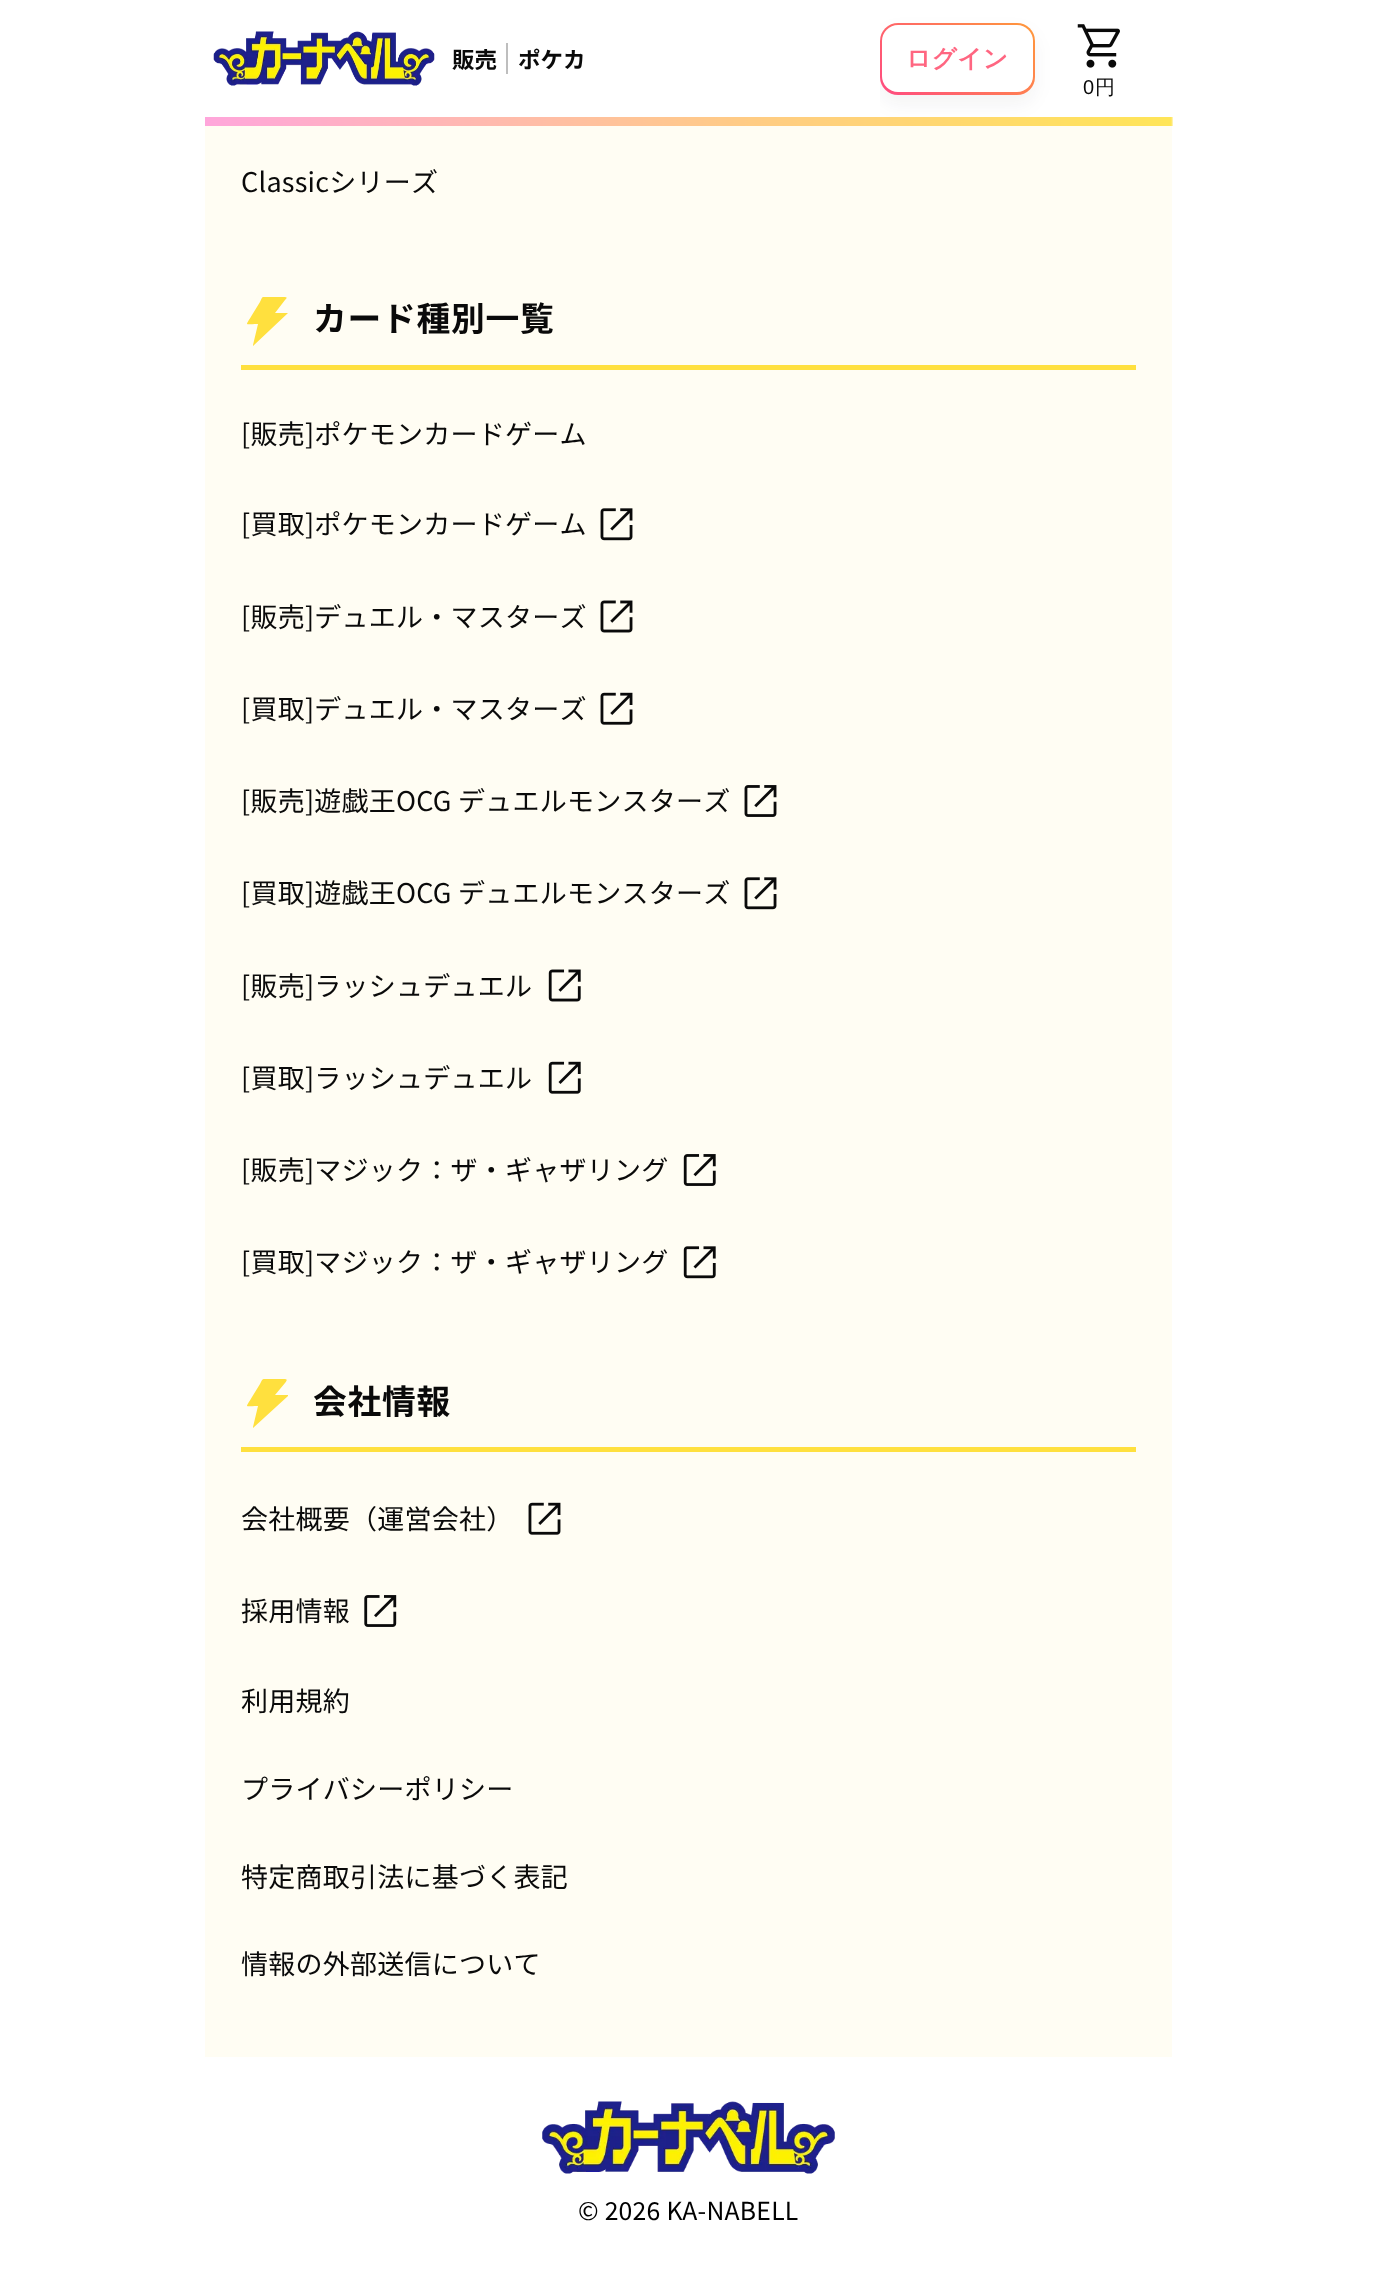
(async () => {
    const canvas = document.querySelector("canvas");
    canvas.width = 1375;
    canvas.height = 2292;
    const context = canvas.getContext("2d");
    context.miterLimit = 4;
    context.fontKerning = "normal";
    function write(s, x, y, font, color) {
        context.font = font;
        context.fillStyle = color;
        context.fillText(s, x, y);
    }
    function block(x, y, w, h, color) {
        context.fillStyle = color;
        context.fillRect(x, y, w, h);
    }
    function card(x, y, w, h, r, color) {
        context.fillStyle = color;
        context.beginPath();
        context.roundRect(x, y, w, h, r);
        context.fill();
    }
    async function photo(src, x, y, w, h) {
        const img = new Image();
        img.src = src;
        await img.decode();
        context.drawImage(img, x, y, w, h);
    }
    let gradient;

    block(0, 0, 1375, 2292, "rgb(255, 255, 255)");
    await photo("media/1.png", 205, 117, 968, 9);
    await photo("media/2.png", 213, 31, 222, 55);
    write("販売", 452, 68, "bold 22.5px Noto Sans JP", "rgb(10, 10, 10)");
    block(506, 43, 2, 31, "rgb(190, 190, 190)");
    write("ポケカ", 518, 68, "bold 22.5px Noto Sans JP", "rgb(10, 10, 10)");
    block(205, 126, 967, 1931, "rgb(255, 253, 243)");
    context.save();
    context.beginPath();
    context.rect(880, 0, 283, 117);
    context.clip();
    context.fillStyle = "rgba(15, 22, 30, 0.05)";
    context.filter = "blur(9px)";
    context.beginPath();
    context.roundRect(880, 32, 155, 72, 18);
    context.fill();
    context.filter = "none";
    context.restore();
    gradient = context.createLinearGradient(901, 115, 1014, 1.7);
    gradient.addColorStop(0, "rgb(255, 75, 129)");
    gradient.addColorStop(1, "rgb(255, 153, 58)");
    context.fillStyle = gradient;
    context.beginPath();
    context.roundRect(880, 23, 155, 72, 18);
    context.fill();
    card(882, 25, 151, 67, 16, "rgb(255, 255, 255)");
    context.letterSpacing = "0.25px";
    write("ログイン", 906, 67, "bold 24.75px WenQuanYi Zen Hei", "rgb(255, 102, 129)");
    await photo("media/3.png", 1077, 24, 43, 44);
    context.letterSpacing = "0px";
    write("0", 1083, 94, "20px Liberation Sans", "rgb(10, 10, 10)");
    write("円", 1095, 94, "500 20px WenQuanYi Zen Hei", "rgb(10, 10, 10)");
    context.letterSpacing = "0.25px";
    write("Classicシリーズ", 241, 192, "27px Noto Sans JP", "rgb(10, 10, 10)");
    block(241, 365, 895, 5, "rgb(255, 224, 62)");
    context.beginPath();
    context.moveTo(288, 313);
    context.lineTo(275, 313);
    context.lineTo(285, 300);
    context.bezierCurveTo(288, 297, 287, 297, 282, 297);
    context.lineTo(267, 297);
    context.bezierCurveTo(261, 297, 263, 296, 260, 302);
    context.lineTo(252, 315);
    context.bezierCurveTo(245, 327, 244, 324, 258, 324);
    context.lineTo(253, 345);
    context.lineTo(253, 346);
    context.closePath();
    context.fill();
    context.letterSpacing = "0.75px";
    write("カード種別一覧", 313, 331, "bold 33.75px Noto Sans JP", "rgb(10, 10, 10)");
    context.letterSpacing = "0.25px";
    write("[販売]ポケモンカードゲーム", 241, 444, "27px Noto Sans JP", "rgb(10, 10, 10)");
    write("[買取]ポケモンカードゲーム", 241, 534, "27px Noto Sans JP", "rgb(10, 10, 10)");
    await photo("media/4.png", 600, 508, 33, 33);
    write("[販売]デュエル・マスターズ", 241, 627, "27px Noto Sans JP", "rgb(10, 10, 10)");
    await photo("media/5.png", 600, 600, 33, 33);
    write("[買取]デュエル・マスターズ", 241, 719, "27px Noto Sans JP", "rgb(10, 10, 10)");
    await photo("media/6.png", 600, 692, 33, 33);
    write("[販売]遊戯王OCG デュエルモンスターズ", 241, 811, "27px Noto Sans JP", "rgb(10, 10, 10)");
    await photo("media/7.png", 744, 785, 33, 32);
    write("[買取]遊戯王OCG デュエルモンスターズ", 241, 903, "27px Noto Sans JP", "rgb(10, 10, 10)");
    await photo("media/4.png", 744, 877, 33, 33);
    write("[販売]ラッシュデュエル", 241, 996, "27px Noto Sans JP", "rgb(10, 10, 10)");
    await photo("media/8.png", 548, 969, 33, 33);
    write("[買取]ラッシュデュエル", 241, 1088, "27px Noto Sans JP", "rgb(10, 10, 10)");
    await photo("media/9.png", 548, 1061, 33, 33);
    write("[販売]マジック：ザ・ギャザリング", 241, 1180, "27px Noto Sans JP", "rgb(10, 10, 10)");
    await photo("media/10.png", 683, 1154, 33, 32);
    write("[買取]マジック：ザ・ギャザリング", 241, 1272, "27px Noto Sans JP", "rgb(10, 10, 10)");
    await photo("media/11.png", 683, 1246, 33, 33);
    block(241, 1447, 895, 5, "rgb(255, 224, 62)");
    context.beginPath();
    context.moveTo(288, 1395);
    context.lineTo(275, 1395);
    context.lineTo(285, 1383);
    context.bezierCurveTo(288, 1379, 287, 1379, 282, 1379);
    context.lineTo(267, 1379);
    context.bezierCurveTo(261, 1379, 263, 1379, 260, 1384);
    context.lineTo(252, 1397);
    context.bezierCurveTo(245, 1409, 244, 1406, 258, 1406);
    context.lineTo(253, 1427);
    context.lineTo(253, 1428);
    context.lineTo(288, 1396);
    context.closePath();
    context.fill();
    context.letterSpacing = "0.75px";
    write("会社情報", 313, 1414, "bold 33.75px Noto Sans JP", "rgb(10, 10, 10)");
    context.letterSpacing = "0.25px";
    write("会社概要（運営会社）", 241, 1529, "27px Noto Sans JP", "rgb(10, 10, 10)");
    await photo("media/6.png", 528, 1502, 33, 33);
    write("採用情報", 241, 1621, "27px Noto Sans JP", "rgb(10, 10, 10)");
    await photo("media/12.png", 364, 1595, 33, 32);
    write("利用規約", 241, 1711, "27px Noto Sans JP", "rgb(10, 10, 10)");
    write("プライバシーポリシー", 241, 1799, "27px Noto Sans JP", "rgb(10, 10, 10)");
    write("特定商取引法に基づく表記", 241, 1887, "27px Noto Sans JP", "rgb(10, 10, 10)");
    write("情報の外部送信について", 241, 1974, "27px Noto Sans JP", "rgb(10, 10, 10)");
    await photo("media/13.png", 542, 2101, 293, 73);
    write("© 2026 KA-NABELL", 578, 2220, "24.75px Noto Sans JP", "rgb(0, 0, 0)");
})();
